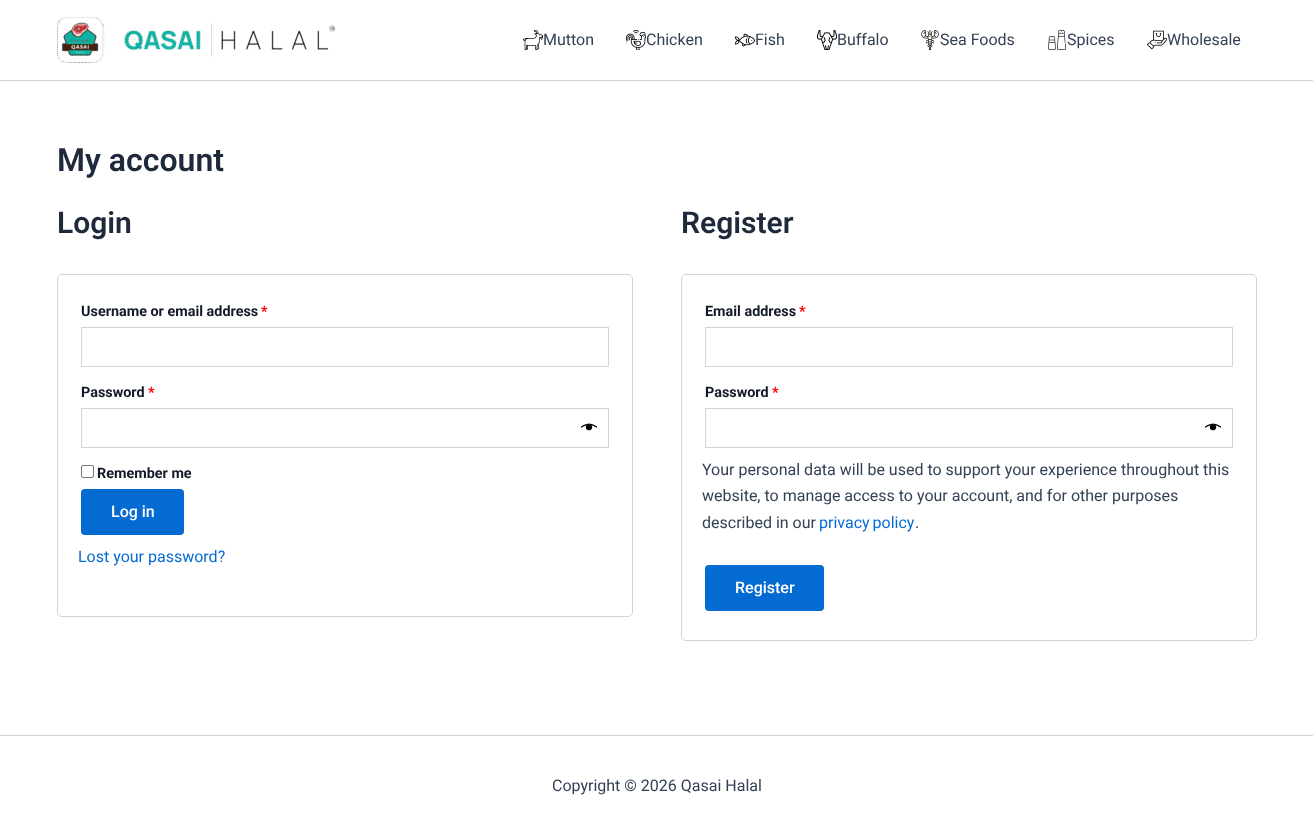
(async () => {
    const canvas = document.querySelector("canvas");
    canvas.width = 1313;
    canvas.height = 836;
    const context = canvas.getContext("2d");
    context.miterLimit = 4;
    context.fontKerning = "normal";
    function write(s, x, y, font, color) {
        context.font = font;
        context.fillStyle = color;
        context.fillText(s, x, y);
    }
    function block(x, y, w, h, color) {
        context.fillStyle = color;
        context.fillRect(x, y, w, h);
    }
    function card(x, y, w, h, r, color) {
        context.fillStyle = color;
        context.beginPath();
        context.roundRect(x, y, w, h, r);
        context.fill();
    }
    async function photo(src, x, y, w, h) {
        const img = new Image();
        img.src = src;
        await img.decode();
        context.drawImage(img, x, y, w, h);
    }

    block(0, 0, 1313, 836, "rgb(255, 255, 255)");
    block(0, 80, 1313, 1, "rgb(209, 213, 219)");
    await photo("media/1.png", 57, 17, 278, 46);
    await photo("media/2.png", 523, 30, 20, 20);
    write("Mutton", 543, 45, "16px Roboto", "rgb(51, 65, 85)");
    await photo("media/3.png", 626, 30, 20, 20);
    write("Chicken", 646, 45, "16px Roboto", "rgb(51, 65, 85)");
    await photo("media/4.png", 735, 33, 20, 14);
    write("Fish", 755, 45, "16px Roboto", "rgb(51, 65, 85)");
    await photo("media/5.png", 817, 30, 20, 20);
    write("Buffalo", 837, 45, "16px Roboto", "rgb(51, 65, 85)");
    await photo("media/6.png", 921, 30, 18, 20);
    write("Sea Foods", 940, 45, "16px Roboto", "rgb(51, 65, 85)");
    await photo("media/7.png", 1048, 30, 18, 20);
    write("Spices", 1067, 45, "16px Roboto", "rgb(51, 65, 85)");
    await photo("media/8.png", 1147, 30, 20, 20);
    write("Wholesale", 1167, 45, "16px Roboto", "rgb(51, 65, 85)");
    write("My account", 57, 171, "600 32px Roboto", "rgb(30, 41, 59)");
    write("Login", 57, 233, "600 30px Roboto", "rgb(30, 41, 59)");
    context.beginPath();
    context.roundRect(57.5, 274.5, 575, 342, 4.5);
    context.strokeStyle = "rgb(209, 213, 219)";
    context.stroke();
    write("Username or email address", 81, 316, "bold 14.4px Roboto", "rgb(17, 24, 39)");
    write("*", 261, 316, "bold 14.4px Roboto", "rgb(255, 0, 0)");
    context.strokeRect(81.5, 327.5, 527, 39);
    write("Password", 81, 397, "bold 14.4px Roboto", "rgb(17, 24, 39)");
    write("*", 148, 397, "bold 14.4px Roboto", "rgb(255, 0, 0)");
    context.strokeRect(81.5, 408.5, 527, 39);
    await photo("media/9.png", 581, 423, 16, 8);
    context.beginPath();
    context.roundRect(81.5, 465.5, 12, 12, 1.5);
    context.strokeStyle = "rgb(118, 118, 118)";
    context.stroke();
    write("Remember me", 97, 478, "bold 14.4px Roboto", "rgb(17, 24, 39)");
    card(81, 489, 103, 46, 4, "rgb(4, 107, 210)");
    write("Log in", 111, 517, "500 16px Roboto", "rgb(255, 255, 255)");
    write("Lost your password?", 78, 562, "16px Roboto", "rgb(4, 107, 210)");
    write("Register", 681, 233, "600 30px Roboto", "rgb(30, 41, 59)");
    context.beginPath();
    context.roundRect(681.5, 274.5, 575, 366, 4.5);
    context.strokeStyle = "rgb(209, 213, 219)";
    context.stroke();
    write("Email address", 705, 316, "bold 14.4px Roboto", "rgb(17, 24, 39)");
    write("*", 799, 316, "bold 14.4px Roboto", "rgb(255, 0, 0)");
    context.strokeRect(705.5, 327.5, 527, 39);
    write("Password", 705, 397, "bold 14.4px Roboto", "rgb(17, 24, 39)");
    write("*", 772, 397, "bold 14.4px Roboto", "rgb(255, 0, 0)");
    context.strokeRect(705.5, 408.5, 527, 39);
    await photo("media/9.png", 1205, 423, 16, 8);
    write("Your personal data will be used to support your experience throughout this", 702, 475, "16px Roboto", "rgb(51, 65, 85)");
    write("website, to manage access to your account, and for other purposes", 702, 501, "16px Roboto", "rgb(51, 65, 85)");
    write("described in our", 702, 528, "16px Roboto", "rgb(51, 65, 85)");
    context.wordSpacing = "-1px";
    write("privacy policy", 819, 528, "16px Roboto", "rgb(4, 107, 210)");
    context.wordSpacing = "0px";
    write(".", 915, 528, "16px Roboto", "rgb(51, 65, 85)");
    card(705, 565, 119, 46, 4, "rgb(4, 107, 210)");
    write("Register", 735, 593, "500 16px Roboto", "rgb(255, 255, 255)");
    block(0, 735, 1313, 1, "rgb(209, 213, 219)");
    write("Copyright © 2026 Qasai Halal", 552, 791, "16px Roboto", "rgb(51, 65, 85)");
})();
